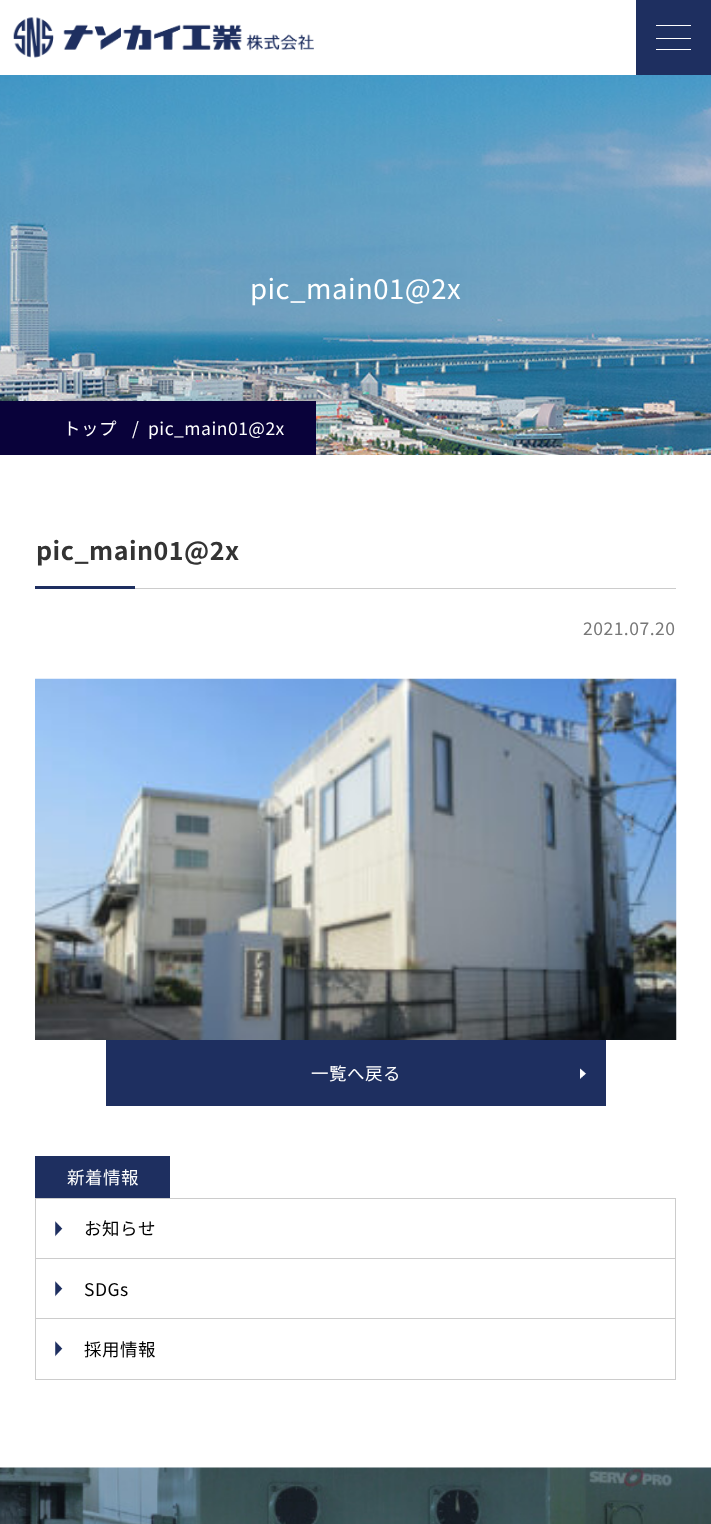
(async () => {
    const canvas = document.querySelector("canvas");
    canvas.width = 711;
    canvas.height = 1524;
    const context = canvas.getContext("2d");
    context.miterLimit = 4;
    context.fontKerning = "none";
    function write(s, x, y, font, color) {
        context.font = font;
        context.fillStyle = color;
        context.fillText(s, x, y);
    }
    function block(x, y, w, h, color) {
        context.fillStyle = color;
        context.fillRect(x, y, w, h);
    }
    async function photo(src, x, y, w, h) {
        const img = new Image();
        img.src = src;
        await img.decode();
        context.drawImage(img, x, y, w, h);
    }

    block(0, 0, 711, 1524, "rgb(255, 255, 255)");
    await photo("media/1.png", 13, 17, 301, 41);
    block(636, 0, 75, 75, "rgb(30, 47, 96)");
    block(656, 25, 35, 1, "rgb(255, 255, 255)");
    block(656, 38, 35, 1, "rgb(255, 255, 255)");
    block(656, 49, 35, 1, "rgb(255, 255, 255)");
    await photo("media/2.png", 0, 75, 711, 380);
    context.letterSpacing = "0.5px";
    write("pic_main01@2x", 250, 299, "27.5px Noto Sans JP", "rgb(255, 255, 255)");
    block(0, 401, 316, 54, "rgb(9, 2, 58)");
    write("トップ", 63, 435, "17.5px Noto Sans JP", "rgb(255, 255, 255)");
    write("/", 132, 435, "17.5px Noto Sans JP", "rgb(255, 255, 255)");
    write("pic_main01@2x", 148, 435, "17.5px Noto Sans JP", "rgb(255, 255, 255)");
    block(135, 588, 541, 1, "rgb(204, 204, 204)");
    write("pic_main01@2x", 36, 560, "bold 25px Noto Sans JP", "rgb(51, 51, 51)");
    block(35, 586, 100, 3, "rgb(30, 47, 96)");
    write("2021.07.20", 583, 635, "17.5px Noto Sans JP", "rgb(119, 119, 119)");
    await photo("media/3.png", 35, 678, 642, 362);
    block(106, 1040, 500, 66, "rgb(30, 47, 96)");
    await photo("media/4.png", 580, 1068, 7, 11);
    write("一覧へ戻る", 311, 1080, "17.5px Noto Sans JP", "rgb(255, 255, 255)");
    block(35, 1156, 135, 42, "rgb(30, 47, 96)");
    write("新着情報", 67, 1184, "17.5px Noto Sans JP", "rgb(255, 255, 255)");
    context.strokeStyle = "rgb(204, 204, 204)";
    context.strokeRect(35.5, 1198.5, 640, 181);
    await photo("media/5.png", 55, 1221, 8, 16);
    write("お知らせ", 84, 1235, "17.5px Noto Sans JP", "rgb(0, 0, 0)");
    block(36, 1258, 639, 1, "rgb(204, 204, 204)");
    await photo("media/5.png", 55, 1281, 8, 16);
    write("SDGs", 84, 1296, "17.5px Noto Sans JP", "rgb(0, 0, 0)");
    block(36, 1318, 639, 1, "rgb(204, 204, 204)");
    await photo("media/5.png", 55, 1341, 8, 16);
    write("採用情報", 84, 1356, "17.5px Noto Sans JP", "rgb(0, 0, 0)");
    await photo("media/6.png", 0, 1467, 711, 57);
})();
